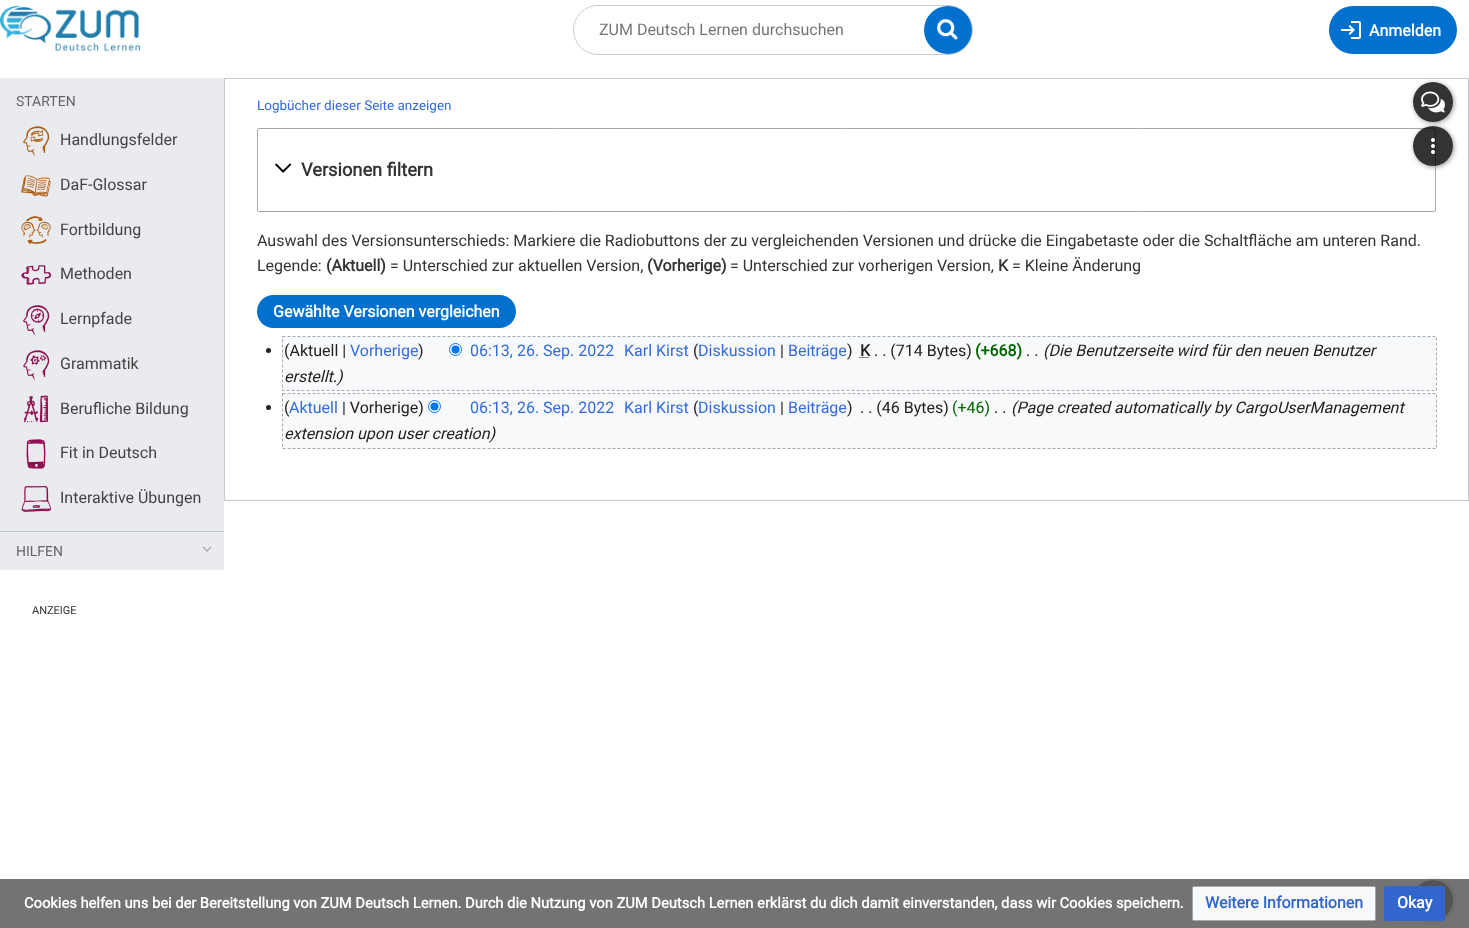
(async () => {
    const canvas = document.querySelector("canvas");
    canvas.width = 1469;
    canvas.height = 928;
    const context = canvas.getContext("2d");
    context.miterLimit = 4;
    context.fontKerning = "normal";
    function write(s, x, y, font, color) {
        context.font = font;
        context.fillStyle = color;
        context.fillText(s, x, y);
    }
    function block(x, y, w, h, color) {
        context.fillStyle = color;
        context.fillRect(x, y, w, h);
    }
    function card(x, y, w, h, r, color) {
        context.fillStyle = color;
        context.beginPath();
        context.roundRect(x, y, w, h, r);
        context.fill();
    }
    async function photo(src, x, y, w, h) {
        const img = new Image();
        img.src = src;
        await img.decode();
        context.drawImage(img, x, y, w, h);
    }

    block(0, 0, 1469, 928, "rgb(255, 255, 255)");
    await photo("media/1.png", 0, 6, 140, 46);
    context.beginPath();
    context.roundRect(573.5, 5.5, 399, 49, 24.5);
    context.strokeStyle = "rgb(200, 204, 209)";
    context.stroke();
    write("ZUM Deutsch Lernen durchsuchen", 599, 35, "16px Roboto", "rgb(117, 117, 117)");
    context.fillStyle = "rgb(1, 112, 206)";
    context.beginPath();
    context.arc(948, 30, 24, 0, Math.PI * 2);
    context.fill();
    await photo("media/2.png", 937, 19, 21, 21);
    card(1329, 6, 128, 48, 24, "rgb(1, 112, 206)");
    await photo("media/3.png", 1341, 21, 20, 18);
    write("Anmelden", 1369, 36, "bold 16px Roboto", "rgb(255, 255, 255)");
    block(0, 78, 224, 492, "rgb(233, 235, 239)");
    write("STARTEN", 16, 106, "14px Roboto", "rgb(102, 102, 102)");
    await photo("media/4.png", 23, 126, 27, 30);
    write("Handlungsfelder", 60, 145, "16px Roboto", "rgb(68, 68, 68)");
    await photo("media/5.png", 21, 175, 30, 22);
    write("DaF-Glossar", 60, 190, "16px Roboto", "rgb(68, 68, 68)");
    await photo("media/6.png", 21, 216, 30, 28);
    write("Fortbildung", 60, 235, "16px Roboto", "rgb(68, 68, 68)");
    await photo("media/7.png", 21, 265, 31, 20);
    write("Methoden", 60, 279, "16px Roboto", "rgb(68, 68, 68)");
    await photo("media/8.png", 23, 305, 27, 30);
    write("Lernpfade", 60, 324, "16px Roboto", "rgb(68, 68, 68)");
    await photo("media/9.png", 23, 350, 27, 30);
    write("Grammatik", 60, 369, "16px Roboto", "rgb(68, 68, 68)");
    await photo("media/10.png", 23, 395, 26, 28);
    write("Berufliche Bildung", 60, 414, "16px Roboto", "rgb(68, 68, 68)");
    await photo("media/11.png", 26, 439, 20, 30);
    write("Fit in Deutsch", 60, 458, "16px Roboto", "rgb(68, 68, 68)");
    await photo("media/12.png", 21, 486, 30, 26);
    write("Interaktive Übungen", 60, 503, "16px Roboto", "rgb(68, 68, 68)");
    block(0, 531, 224, 1, "rgb(200, 204, 209)");
    write("HILFEN", 16, 556, "14px Roboto", "rgb(102, 102, 102)");
    await photo("media/13.png", 202, 546, 10, 6);
    write("ANZEIGE", 32, 614, "11px Roboto", "rgb(51, 51, 51)");
    context.strokeRect(224.5, 78.5, 1244, 422);
    context.beginPath();
    context.roundRect(257.5, 128.5, 1178, 83, 1.5);
    context.strokeStyle = "rgb(162, 169, 177)";
    context.stroke();
    context.save();
    context.beginPath();
    context.moveTo(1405, 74);
    context.lineTo(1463, 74);
    context.lineTo(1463, 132);
    context.lineTo(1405, 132);
    context.closePath();
    context.moveTo(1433, 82);
    context.bezierCurveTo(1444, 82, 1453, 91, 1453, 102);
    context.bezierCurveTo(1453, 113, 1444, 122, 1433, 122);
    context.bezierCurveTo(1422, 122, 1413, 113, 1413, 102);
    context.bezierCurveTo(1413, 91, 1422, 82, 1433, 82);
    context.closePath();
    context.clip("evenodd");
    context.fillStyle = "rgb(153, 153, 153)";
    context.filter = "blur(2.5px)";
    context.beginPath();
    context.roundRect(1414, 83, 40, 40, 20);
    context.fill();
    context.filter = "none";
    context.restore();
    context.fillStyle = "rgba(0, 0, 0, 0.8)";
    context.beginPath();
    context.arc(1433, 102, 20, 0, Math.PI * 2);
    context.fill();
    await photo("media/14.png", 1421, 91, 24, 22);
    context.save();
    context.beginPath();
    context.moveTo(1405, 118);
    context.lineTo(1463, 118);
    context.lineTo(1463, 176);
    context.lineTo(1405, 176);
    context.closePath();
    context.moveTo(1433, 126);
    context.bezierCurveTo(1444, 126, 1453, 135, 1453, 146);
    context.bezierCurveTo(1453, 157, 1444, 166, 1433, 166);
    context.bezierCurveTo(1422, 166, 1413, 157, 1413, 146);
    context.bezierCurveTo(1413, 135, 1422, 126, 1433, 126);
    context.closePath();
    context.clip("evenodd");
    context.fillStyle = "rgb(153, 153, 153)";
    context.filter = "blur(2.5px)";
    context.beginPath();
    context.roundRect(1414, 127, 40, 40, 20);
    context.fill();
    context.filter = "none";
    context.restore();
    context.beginPath();
    context.arc(1433, 146, 20, 0, Math.PI * 2);
    context.fill();
    await photo("media/15.png", 1431, 138, 4, 16);
    context.save();
    context.beginPath();
    context.moveTo(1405, 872);
    context.lineTo(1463, 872);
    context.lineTo(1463, 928);
    context.lineTo(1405, 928);
    context.closePath();
    context.moveTo(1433, 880);
    context.bezierCurveTo(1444, 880, 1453, 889, 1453, 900);
    context.bezierCurveTo(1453, 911, 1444, 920, 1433, 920);
    context.bezierCurveTo(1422, 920, 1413, 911, 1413, 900);
    context.bezierCurveTo(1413, 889, 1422, 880, 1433, 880);
    context.closePath();
    context.clip("evenodd");
    context.fillStyle = "rgb(153, 153, 153)";
    context.filter = "blur(2.5px)";
    context.beginPath();
    context.roundRect(1414, 881, 40, 40, 20);
    context.fill();
    context.filter = "none";
    context.restore();
    context.beginPath();
    context.arc(1433, 900, 20, 0, Math.PI * 2);
    context.fill();
    write("Logbücher dieser Seite anzeigen", 257, 110, "13.5px Roboto", "rgb(51, 107, 218)");
    await photo("media/16.png", 275, 163, 17, 10);
    write("Versionen filtern", 301, 176, "bold 18.25px Roboto", "rgb(51, 51, 51)");
    write("Auswahl des Versionsunterschieds: Markiere die Radiobuttons der zu vergleichenden Versionen und drücke die Eingabetaste oder die Schaltfläche am unteren Rand.", 257, 246, "16px Roboto", "rgb(51, 51, 51)");
    write("Legende:", 257, 271, "16px Roboto", "rgb(51, 51, 51)");
    write("(Aktuell)", 326, 271, "bold 16px Roboto", "rgb(51, 51, 51)");
    write("= Unterschied zur aktuellen Version,", 390, 271, "16px Roboto", "rgb(51, 51, 51)");
    write("(Vorherige)", 647, 271, "bold 16px Roboto", "rgb(51, 51, 51)");
    write("= Unterschied zur vorherigen Version,", 730, 271, "16px Roboto", "rgb(51, 51, 51)");
    write("K", 998, 271, "bold 16px Roboto", "rgb(51, 51, 51)");
    write("= Kleine Änderung", 1012, 271, "16px Roboto", "rgb(51, 51, 51)");
    card(257, 295, 259, 33, 16.5, "rgb(1, 112, 206)");
    write("Gewählte Versionen vergleichen", 273, 317, "bold 16px Roboto", "rgb(255, 255, 255)");
    block(283, 337, 1153, 53, "rgb(248, 249, 250)");
    write("(Aktuell |", 284, 356, "16px Roboto", "rgb(32, 33, 34)");
    write("Vorherige", 350, 356, "16px Roboto", "rgb(51, 107, 218)");
    write(")", 418, 356, "16px Roboto", "rgb(32, 33, 34)");
    context.fillStyle = "rgb(255, 255, 255)";
    context.beginPath();
    context.arc(455.5, 349.5, 6, 0, Math.PI * 2);
    context.fill();
    context.strokeStyle = "rgb(0, 117, 255)";
    context.stroke();
    context.fillStyle = "rgb(0, 117, 255)";
    context.beginPath();
    context.arc(455.5, 349.5, 4, 0, Math.PI * 2);
    context.fill();
    write("06:13, 26. Sep. 2022", 470, 356, "16px Roboto", "rgb(51, 107, 218)");
    write("Karl Kirst", 624, 356, "16px Roboto", "rgb(51, 107, 218)");
    write("(", 693, 356, "16px Roboto", "rgb(32, 33, 34)");
    write("Diskussion", 698, 356, "16px Roboto", "rgb(51, 107, 218)");
    write("|", 780, 356, "16px Roboto", "rgb(32, 33, 34)");
    write("Beiträge", 788, 356, "16px Roboto", "rgb(51, 107, 218)");
    write(")", 847, 356, "16px Roboto", "rgb(32, 33, 34)");
    write("K", 860, 356, "bold 16px Roboto", "rgb(32, 33, 34)");
    context.beginPath();
    context.moveTo(859.5, 357.5);
    context.lineTo(869.5, 357.5);
    context.strokeStyle = "rgb(32, 33, 34)";
    context.setLineDash([1, 1]);
    context.stroke();
    write(". . (714 Bytes)", 874, 356, "16px Roboto", "rgb(32, 33, 34)");
    write("(+668)", 975, 356, "bold 16px Roboto", "rgb(0, 100, 0)");
    write("(Die Benutzerseite wird für den neuen Benutzer", 1043, 356, "italic 16px Roboto", "rgb(32, 33, 34)");
    write(". .", 1026, 356, "16px Roboto", "rgb(32, 33, 34)");
    write("erstellt.)", 284, 382, "italic 16px Roboto", "rgb(32, 33, 34)");
    context.beginPath();
    context.moveTo(282.5, 336.5);
    context.lineTo(1436.5, 336.5);
    context.lineTo(1436.5, 390.5);
    context.lineTo(282.5, 390.5);
    context.closePath();
    context.strokeStyle = "rgb(162, 169, 177)";
    context.setLineDash([3, 2]);
    context.stroke();
    context.beginPath();
    context.arc(268.5, 350.5, 2.5, 0, Math.PI * 2);
    context.fill();
    block(283, 394, 1153, 54, "rgb(248, 249, 250)");
    write("(", 284, 413, "16px Roboto", "rgb(32, 33, 34)");
    write("Aktuell", 289, 413, "16px Roboto", "rgb(51, 107, 218)");
    write("| Vorherige)", 342, 413, "16px Roboto", "rgb(32, 33, 34)");
    context.fillStyle = "rgb(255, 255, 255)";
    context.beginPath();
    context.arc(434.5, 406.5, 6, 0, Math.PI * 2);
    context.fill();
    context.strokeStyle = "rgb(0, 117, 255)";
    context.setLineDash([]);
    context.stroke();
    context.fillStyle = "rgb(0, 117, 255)";
    context.beginPath();
    context.arc(434.5, 406.5, 4, 0, Math.PI * 2);
    context.fill();
    write("06:13, 26. Sep. 2022", 470, 413, "16px Roboto", "rgb(51, 107, 218)");
    write("Karl Kirst", 624, 413, "16px Roboto", "rgb(51, 107, 218)");
    write("(", 693, 413, "16px Roboto", "rgb(32, 33, 34)");
    write("Diskussion", 698, 413, "16px Roboto", "rgb(51, 107, 218)");
    write("|", 780, 413, "16px Roboto", "rgb(32, 33, 34)");
    write("Beiträge", 788, 413, "16px Roboto", "rgb(51, 107, 218)");
    write(")", 847, 413, "16px Roboto", "rgb(32, 33, 34)");
    write(". . (46 Bytes)", 860, 413, "16px Roboto", "rgb(32, 33, 34)");
    write("(+46)", 952, 413, "16px Roboto", "rgb(0, 100, 0)");
    write("(Page created automatically by CargoUserManagement", 1011, 413, "italic 16px Roboto", "rgb(32, 33, 34)");
    write(". .", 994, 413, "16px Roboto", "rgb(32, 33, 34)");
    write("extension upon user creation)", 284, 439, "italic 16px Roboto", "rgb(32, 33, 34)");
    context.beginPath();
    context.moveTo(282.5, 393.5);
    context.lineTo(1436.5, 393.5);
    context.lineTo(1436.5, 448.5);
    context.lineTo(282.5, 448.5);
    context.closePath();
    context.strokeStyle = "rgb(162, 169, 177)";
    context.setLineDash([3, 2]);
    context.stroke();
    context.beginPath();
    context.arc(268.5, 407.5, 2.5, 0, Math.PI * 2);
    context.fill();
    block(0, 879, 1469, 49, "rgba(90, 90, 90, 0.85)");
    write("Cookies helfen uns bei der Bereitstellung von ZUM Deutsch Lernen. Durch die Nutzung von ZUM Deutsch Lernen erklärst du dich damit einverstanden, dass wir Cookies speichern.", 24, 908, "bold 14.72px Roboto", "rgb(255, 255, 255)");
    context.fillStyle = "rgb(248, 249, 250)";
    context.beginPath();
    context.roundRect(1192.5, 886.5, 183, 34, 1.5);
    context.fill();
    context.setLineDash([]);
    context.stroke();
    write("Weitere Informationen", 1205, 908, "bold 16px Roboto", "rgb(51, 102, 204)");
    context.beginPath();
    context.roundRect(1384.5, 886.5, 60, 34, 1.5);
    context.fill();
    context.strokeStyle = "rgb(51, 102, 204)";
    context.stroke();
    write("Okay", 1397, 908, "bold 16px Roboto", "rgb(255, 255, 255)");
})();
